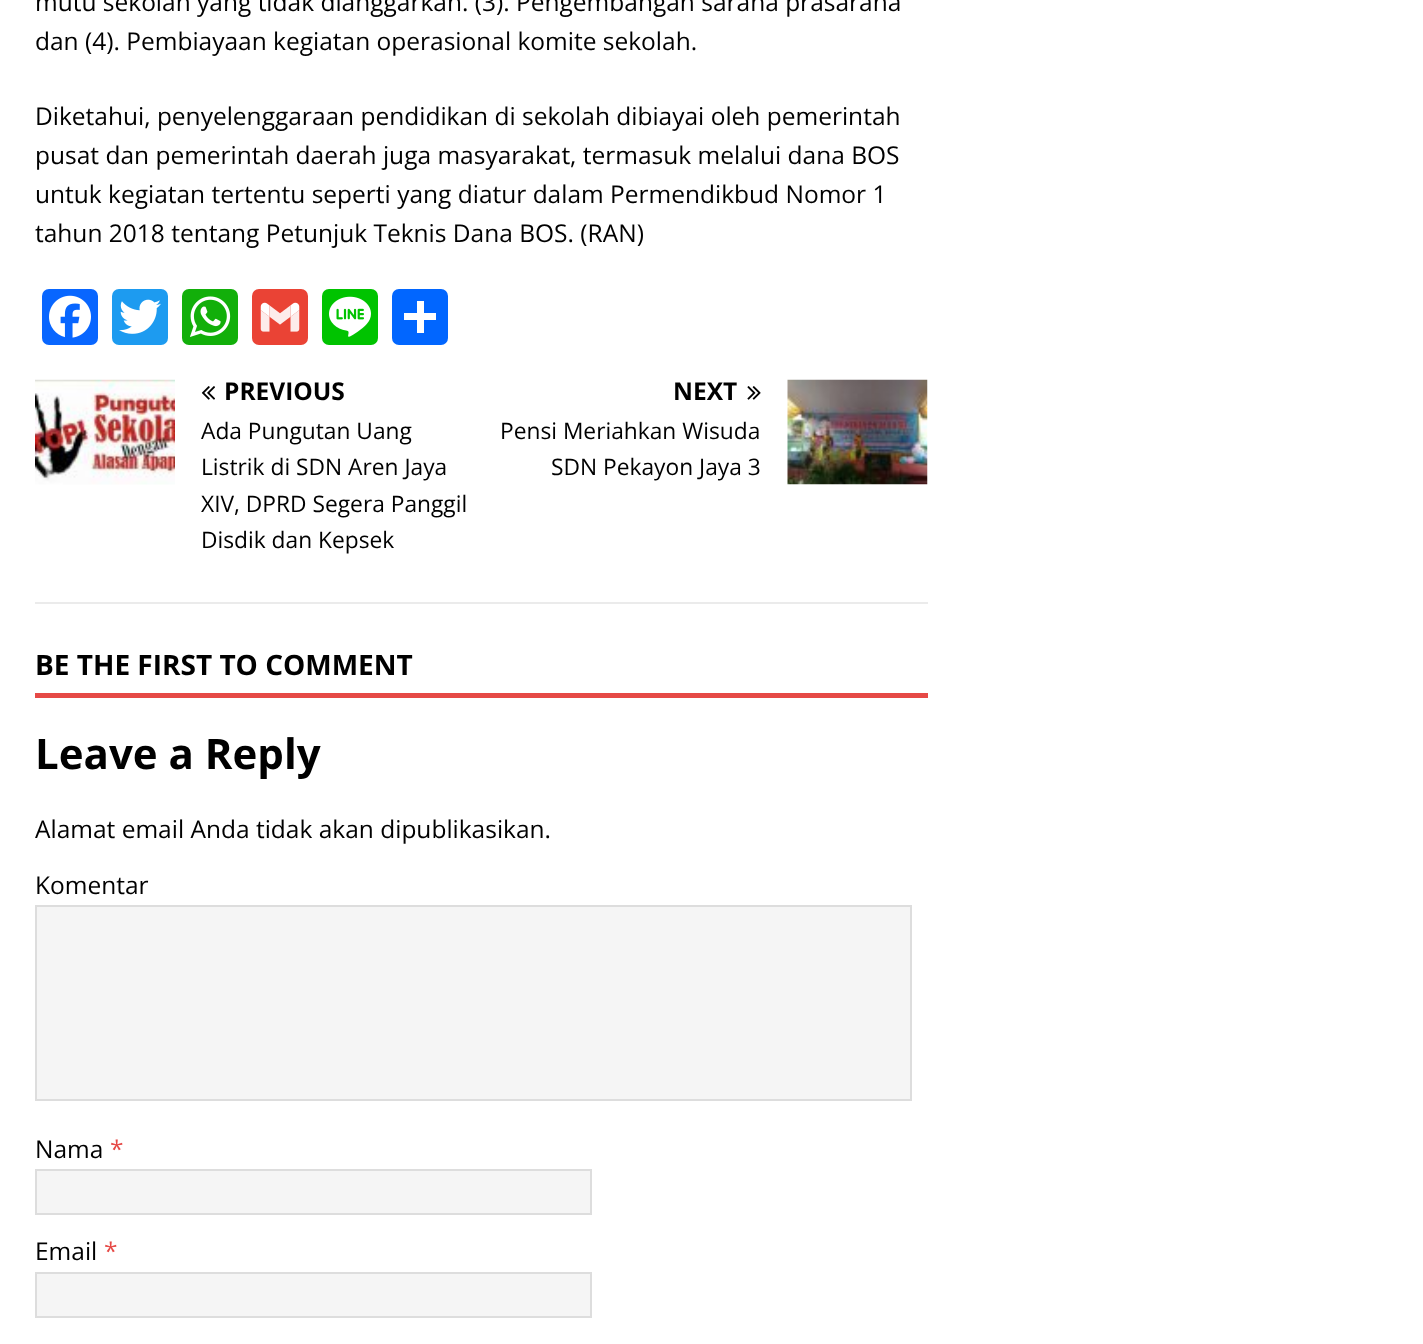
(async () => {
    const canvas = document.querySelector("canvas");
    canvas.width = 1423;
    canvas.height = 1344;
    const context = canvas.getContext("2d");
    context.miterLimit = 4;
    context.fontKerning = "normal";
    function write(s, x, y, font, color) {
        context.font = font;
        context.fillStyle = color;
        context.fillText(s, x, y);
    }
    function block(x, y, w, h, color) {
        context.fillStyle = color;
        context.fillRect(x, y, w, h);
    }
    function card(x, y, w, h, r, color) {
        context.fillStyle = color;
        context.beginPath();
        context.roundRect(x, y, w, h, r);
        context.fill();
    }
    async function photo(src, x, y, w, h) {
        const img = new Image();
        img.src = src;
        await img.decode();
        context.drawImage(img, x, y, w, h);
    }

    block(0, 0, 1423, 1344, "rgb(255, 255, 255)");
    write("mutu sekolah yang tidak dianggarkan. (3). Pengembangan sarana prasarana", 35, 11, "24.5px Open Sans", "rgb(0, 0, 0)");
    write("dan (4). Pembiayaan kegiatan operasional komite sekolah.", 35, 50, "24.5px Open Sans", "rgb(0, 0, 0)");
    write("Diketahui, penyelenggaraan pendidikan di sekolah dibiayai oleh pemerintah", 35, 125, "24.5px Open Sans", "rgb(0, 0, 0)");
    write("pusat dan pemerintah daerah juga masyarakat, termasuk melalui dana BOS", 35, 164, "24.5px Open Sans", "rgb(0, 0, 0)");
    write("untuk kegiatan tertentu seperti yang diatur dalam Permendikbud Nomor 1", 35, 203, "24.5px Open Sans", "rgb(0, 0, 0)");
    write("tahun 2018 tentang Petunjuk Teknis Dana BOS. (RAN)", 35, 242, "24.5px Open Sans", "rgb(0, 0, 0)");
    card(42, 289, 56, 56, 7, "rgb(8, 102, 255)");
    await photo("media/1.png", 49, 295, 42, 43);
    card(112, 289, 56, 56, 7, "rgb(29, 155, 240)");
    await photo("media/2.png", 119, 299, 42, 35);
    card(182, 289, 56, 56, 7, "rgb(18, 175, 10)");
    await photo("media/3.png", 190, 296, 41, 41);
    card(252, 289, 56, 56, 7, "rgb(234, 67, 53)");
    await photo("media/4.png", 260, 302, 40, 30);
    card(322, 289, 56, 56, 7, "rgb(0, 195, 0)");
    await photo("media/5.png", 329, 296, 42, 41);
    card(392, 289, 56, 56, 7, "rgb(1, 102, 255)");
    block(417, 301, 7, 32, "rgb(255, 255, 255)");
    block(404, 313, 32, 7, "rgb(255, 255, 255)");
    block(35, 602, 893, 2, "rgb(235, 235, 235)");
    await photo("media/6.png", 35, 379, 140, 106);
    await photo("media/7.png", 201, 386, 14, 14);
    write("PREVIOUS", 224, 400, "bold 24.5px Open Sans", "rgb(0, 0, 0)");
    write("Ada Pungutan Uang", 201, 439, "22.75px Open Sans", "rgb(0, 0, 0)");
    write("Listrik di SDN Aren Jaya", 201, 475, "22.75px Open Sans", "rgb(0, 0, 0)");
    write("XIV, DPRD Segera Panggil", 201, 512, "22.75px Open Sans", "rgb(0, 0, 0)");
    write("Disdik dan Kepsek", 201, 548, "22.75px Open Sans", "rgb(0, 0, 0)");
    write("NEXT", 673, 400, "bold 24.5px Open Sans", "rgb(0, 0, 0)");
    await photo("media/8.png", 747, 386, 14, 14);
    await photo("media/9.png", 787, 379, 141, 106);
    write("Pensi Meriahkan Wisuda", 500, 439, "22.75px Open Sans", "rgb(0, 0, 0)");
    write("SDN Pekayon Jaya 3", 551, 475, "22.75px Open Sans", "rgb(0, 0, 0)");
    block(35, 693, 893, 5, "rgb(230, 73, 70)");
    write("BE THE FIRST TO COMMENT", 35, 675, "bold 28px Open Sans", "rgb(0, 0, 0)");
    write("Leave a Reply", 35, 769, "bold 42px Open Sans", "rgb(0, 0, 0)");
    write("Alamat email Anda tidak akan dipublikasikan.", 35, 838, "24.5px Open Sans", "rgb(0, 0, 0)");
    write("Komentar", 35, 894, "24.5px Open Sans", "rgb(0, 0, 0)");
    context.fillStyle = "rgb(245, 245, 245)";
    context.beginPath();
    context.rect(36, 906, 875, 194);
    context.fill();
    context.strokeStyle = "rgb(221, 221, 221)";
    context.lineWidth = 2;
    context.stroke();
    write("Nama", 35, 1158, "24.5px Open Sans", "rgb(0, 0, 0)");
    write("*", 110, 1158, "24.5px Open Sans", "rgb(230, 73, 70)");
    context.fillStyle = "rgb(245, 245, 245)";
    context.beginPath();
    context.rect(36, 1170, 555, 44);
    context.fill();
    context.stroke();
    write("Email", 35, 1260, "24.5px Open Sans", "rgb(0, 0, 0)");
    write("*", 104, 1260, "24.5px Open Sans", "rgb(230, 73, 70)");
    context.fillStyle = "rgb(245, 245, 245)";
    context.beginPath();
    context.rect(36, 1273, 555, 44);
    context.fill();
    context.stroke();
})();
